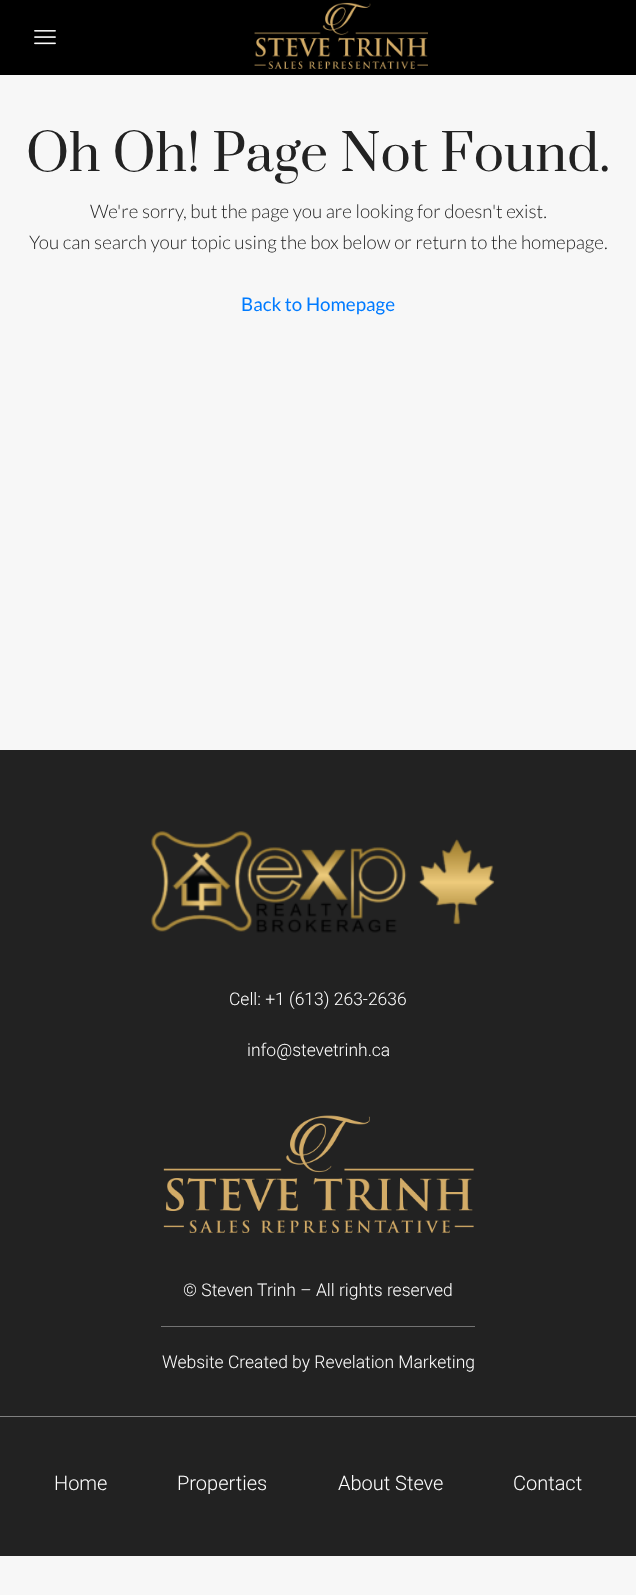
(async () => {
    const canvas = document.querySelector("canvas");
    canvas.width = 636;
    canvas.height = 1595;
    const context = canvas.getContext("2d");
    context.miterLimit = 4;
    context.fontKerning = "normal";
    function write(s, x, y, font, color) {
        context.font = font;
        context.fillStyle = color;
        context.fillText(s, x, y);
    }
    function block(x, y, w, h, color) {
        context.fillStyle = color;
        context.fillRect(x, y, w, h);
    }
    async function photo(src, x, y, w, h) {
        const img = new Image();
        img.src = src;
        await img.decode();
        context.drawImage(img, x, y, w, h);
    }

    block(0, 0, 636, 1595, "rgb(247, 247, 247)");
    block(0, 0, 636, 75, "rgb(0, 0, 0)");
    await photo("media/1.png", 34, 30, 22, 15);
    await photo("media/2.png", 254, 2, 174, 67);
    write("Oh Oh! Page Not Found.", 26, 171, "50px Prata", "rgb(34, 34, 34)");
    write("We're sorry, but the page you are looking for doesn't exist.", 90, 218, "300 18.75px Lato", "rgb(34, 34, 34)");
    write("You can search your topic using the box below or return to the homepage.", 29, 249, "300 18.75px Lato", "rgb(34, 34, 34)");
    write("Back to Homepage", 241, 311, "18.75px Lato", "rgb(0, 123, 255)");
    block(0, 750, 636, 666, "rgb(34, 34, 34)");
    await photo("media/3.png", 151, 831, 344, 102);
    write("Cell: +1 (613) 263-2636", 229, 1005, "300 17.5px Roboto", "rgb(255, 255, 255)");
    write("info@stevetrinh.ca", 247, 1056, "300 17.5px Roboto", "rgb(255, 255, 255)");
    await photo("media/4.png", 163, 1115, 311, 118);
    write("© Steven Trinh – All rights reserved", 183, 1296, "300 17.5px Roboto", "rgb(255, 255, 255)");
    block(161, 1326, 314, 1, "rgb(115, 115, 115)");
    write("Website Created by Revelation Marketing", 162, 1368, "300 17.5px Roboto", "rgb(255, 255, 255)");
    block(0, 1417, 636, 139, "rgb(34, 34, 34)");
    block(0, 1416, 636, 1, "rgb(128, 128, 128)");
    write("Home", 54, 1490, "300 20px Roboto", "rgb(255, 255, 255)");
    write("Properties", 177, 1490, "300 20px Roboto", "rgb(255, 255, 255)");
    write("About Steve", 338, 1490, "300 20px Roboto", "rgb(255, 255, 255)");
    write("Contact", 513, 1490, "300 20px Roboto", "rgb(255, 255, 255)");
})();
